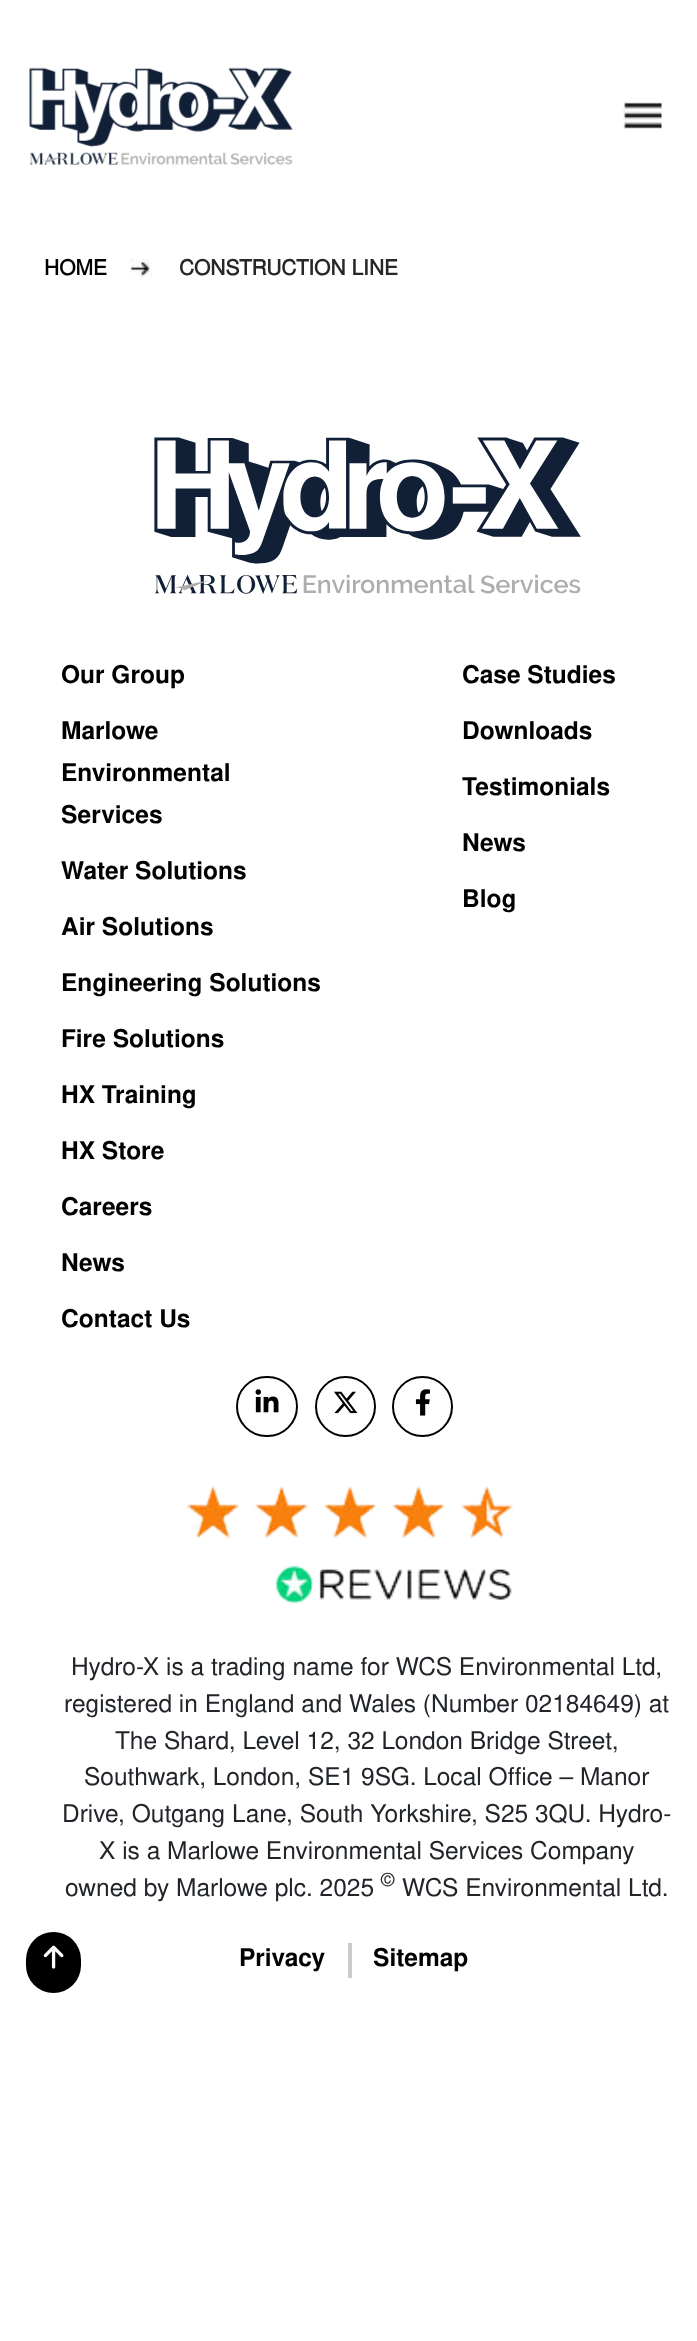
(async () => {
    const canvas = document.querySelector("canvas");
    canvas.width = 697;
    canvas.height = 2341;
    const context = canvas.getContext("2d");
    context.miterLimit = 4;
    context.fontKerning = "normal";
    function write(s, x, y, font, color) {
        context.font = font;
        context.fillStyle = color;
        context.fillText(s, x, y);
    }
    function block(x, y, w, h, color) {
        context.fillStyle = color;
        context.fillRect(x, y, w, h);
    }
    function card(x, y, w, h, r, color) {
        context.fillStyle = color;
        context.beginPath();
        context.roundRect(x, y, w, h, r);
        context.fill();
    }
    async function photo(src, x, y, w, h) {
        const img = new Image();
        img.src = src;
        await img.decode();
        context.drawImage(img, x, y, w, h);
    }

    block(0, 0, 697, 2341, "rgb(255, 255, 255)");
    await photo("media/1.png", 29, 67, 264, 98);
    await photo("media/2.png", 623, 101, 39, 29);
    write("HOME", 44, 275, "bold 21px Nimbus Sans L", "rgb(0, 0, 0)");
    await photo("media/3.png", 129, 259, 23, 19);
    write("CONSTRUCTION LINE", 179, 275, "bold 21px Nimbus Sans L", "rgb(39, 39, 42)");
    await photo("media/4.png", 154, 437, 427, 157);
    write("Our Group", 61, 683, "bold 24.5px 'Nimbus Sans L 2'", "rgb(0, 0, 0)");
    write("Marlowe", 61, 739, "bold 24.5px 'Nimbus Sans L 2'", "rgb(0, 0, 0)");
    write("Environmental", 61, 781, "bold 24.5px 'Nimbus Sans L 2'", "rgb(0, 0, 0)");
    write("Services", 61, 823, "bold 24.5px 'Nimbus Sans L 2'", "rgb(0, 0, 0)");
    write("Water Solutions", 61, 879, "bold 24.5px 'Nimbus Sans L 2'", "rgb(0, 0, 0)");
    write("Air Solutions", 61, 935, "bold 24.5px 'Nimbus Sans L 2'", "rgb(0, 0, 0)");
    write("Engineering Solutions", 61, 991, "bold 24.5px 'Nimbus Sans L 2'", "rgb(0, 0, 0)");
    write("Fire Solutions", 61, 1047, "bold 24.5px 'Nimbus Sans L 2'", "rgb(0, 0, 0)");
    write("HX Training", 61, 1103, "bold 24.5px 'Nimbus Sans L 2'", "rgb(0, 0, 0)");
    write("HX Store", 61, 1159, "bold 24.5px 'Nimbus Sans L 2'", "rgb(0, 0, 0)");
    write("Careers", 61, 1215, "bold 24.5px 'Nimbus Sans L 2'", "rgb(0, 0, 0)");
    write("News", 61, 1271, "bold 24.5px 'Nimbus Sans L 2'", "rgb(0, 0, 0)");
    write("Contact Us", 61, 1327, "bold 24.5px 'Nimbus Sans L 2'", "rgb(0, 0, 0)");
    write("Case Studies", 462, 683, "bold 24.5px 'Nimbus Sans L 2'", "rgb(0, 0, 0)");
    write("Downloads", 462, 739, "bold 24.5px 'Nimbus Sans L 2'", "rgb(0, 0, 0)");
    write("Testimonials", 462, 795, "bold 24.5px 'Nimbus Sans L 2'", "rgb(0, 0, 0)");
    write("News", 462, 851, "bold 24.5px 'Nimbus Sans L 2'", "rgb(0, 0, 0)");
    write("Blog", 462, 907, "bold 24.5px 'Nimbus Sans L 2'", "rgb(0, 0, 0)");
    context.beginPath();
    context.roundRect(237, 1377, 60, 59, 29.5);
    context.strokeStyle = "rgb(0, 0, 0)";
    context.lineWidth = 2;
    context.stroke();
    await photo("media/5.png", 255, 1389, 24, 24);
    context.beginPath();
    context.arc(345.5, 1406.5, 29.5, 0, Math.PI * 2);
    context.stroke();
    await photo("media/6.png", 334, 1391, 24, 23);
    context.beginPath();
    context.arc(422.5, 1406.5, 29.5, 0, Math.PI * 2);
    context.stroke();
    await photo("media/7.png", 415, 1389, 15, 27);
    await photo("media/8.png", 186, 1485, 327, 118);
    card(26, 1932, 55, 61, 27.5, "rgb(0, 0, 0)");
    await photo("media/9.png", 43, 1945, 21, 24);
    write("Hydro-X is a trading name for WCS Environmental Ltd,", 71, 1675, "24.5px Nimbus Sans L", "rgb(33, 37, 41)");
    write("registered in England and Wales (Number 02184649) at", 64, 1712, "24.5px Nimbus Sans L", "rgb(33, 37, 41)");
    write("The Shard, Level 12, 32 London Bridge Street,", 115, 1749, "24.5px Nimbus Sans L", "rgb(33, 37, 41)");
    write("Southwark, London, SE1 9SG. Local Office – Manor", 84, 1785, "24.5px Nimbus Sans L", "rgb(33, 37, 41)");
    write("Drive, Outgang Lane, South Yorkshire, S25 3QU. Hydro-", 62, 1822, "24.5px Nimbus Sans L", "rgb(33, 37, 41)");
    write("X is a Marlowe Environmental Services Company", 99, 1859, "24.5px Nimbus Sans L", "rgb(33, 37, 41)");
    write("owned by Marlowe plc. 2025", 65, 1896, "24.5px Nimbus Sans L", "rgb(33, 37, 41)");
    write("©", 381, 1886, "18px Nimbus Sans L", "rgb(33, 37, 41)");
    write("WCS Environmental Ltd.", 402, 1896, "24.5px Nimbus Sans L", "rgb(33, 37, 41)");
    write("Privacy", 239, 1966, "bold 24.5px 'Nimbus Sans L 2'", "rgb(0, 0, 0)");
    block(348, 1943, 4, 35, "rgb(204, 204, 204)");
    write("Sitemap", 373, 1966, "bold 24.5px 'Nimbus Sans L 2'", "rgb(0, 0, 0)");
})();
